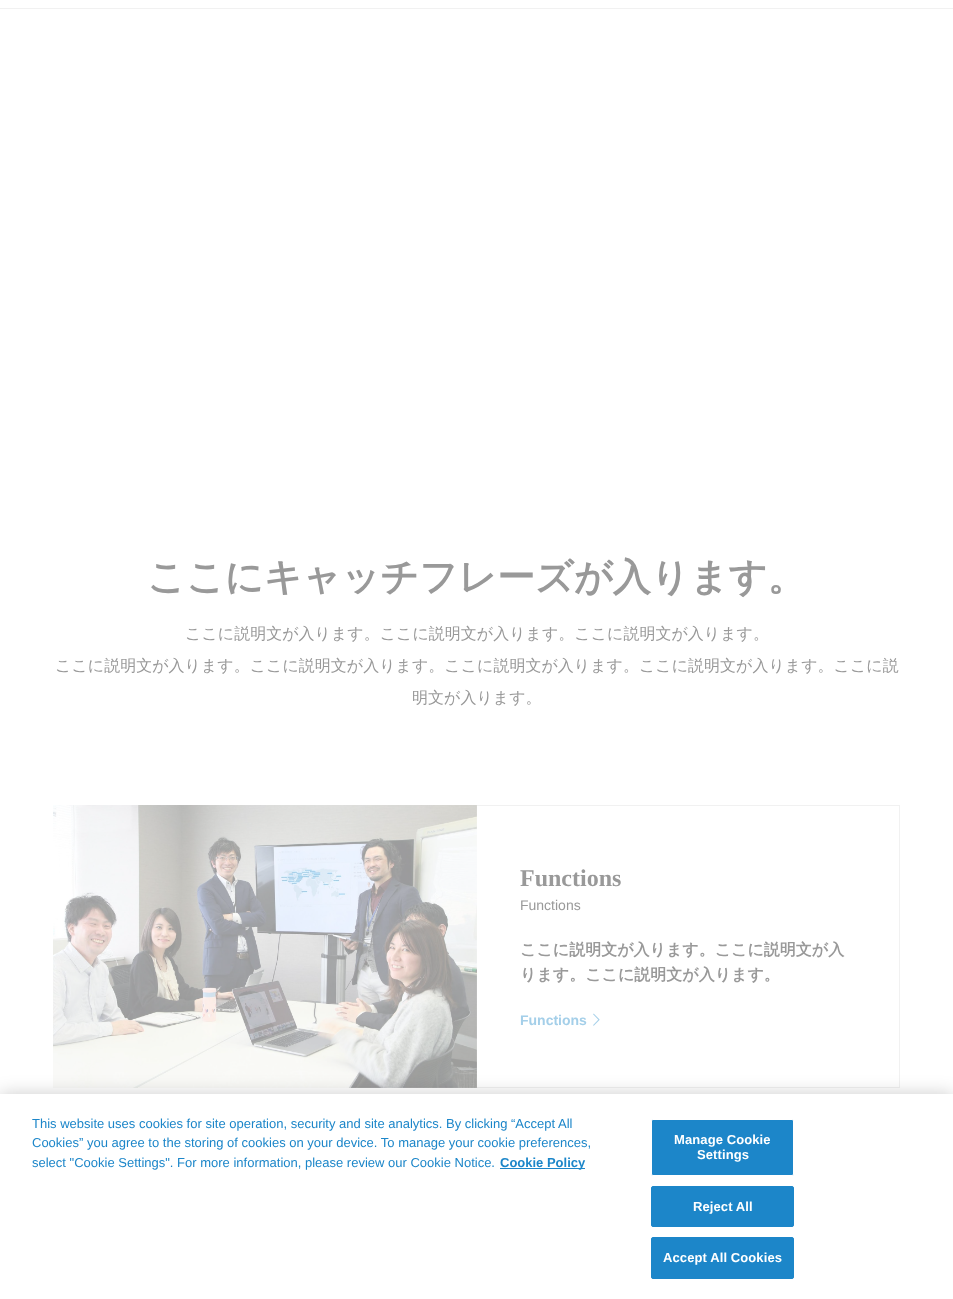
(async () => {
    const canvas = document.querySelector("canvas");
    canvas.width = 953;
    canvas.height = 1299;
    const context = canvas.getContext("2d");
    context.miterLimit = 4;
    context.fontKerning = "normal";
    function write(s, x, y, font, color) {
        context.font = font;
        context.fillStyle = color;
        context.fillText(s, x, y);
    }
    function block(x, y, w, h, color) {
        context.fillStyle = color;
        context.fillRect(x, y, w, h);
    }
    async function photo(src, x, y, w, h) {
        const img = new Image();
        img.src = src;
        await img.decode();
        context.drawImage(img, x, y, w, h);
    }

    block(0, 0, 953, 1299, "rgb(255, 255, 255)");
    block(0, 8, 953, 1, "rgb(241, 241, 241)");
    write("ここにキャッチフレーズが入ります。", 147, 590, "bold 38px WenQuanYi Zen Hei", "rgb(153, 153, 153)");
    write("ここに説明文が入ります。ここに説明文が入ります。ここに説明文が入ります。", 185, 639, "500 16px WenQuanYi Zen Hei", "rgb(153, 153, 153)");
    write("ここに説明文が入ります。ここに説明文が入ります。ここに説明文が入ります。ここに説明文が入ります。ここに説", 55, 671, "500 16px WenQuanYi Zen Hei", "rgb(153, 153, 153)");
    write("明文が入ります。", 412, 703, "500 16px WenQuanYi Zen Hei", "rgb(153, 153, 153)");
    await photo("media/1.png", 53, 805, 424, 283);
    block(477, 805, 423, 1, "rgb(241, 241, 241)");
    block(899, 805, 1, 283, "rgb(241, 241, 241)");
    block(477, 1087, 423, 1, "rgb(241, 241, 241)");
    write("Functions", 520, 886, "bold 24px Liberation Serif", "rgb(153, 153, 153)");
    write("Functions", 520, 910, "14px Liberation Sans", "rgb(153, 153, 153)");
    write("ここに説明文が入ります。ここに説明文が入", 520, 955, "bold 16px WenQuanYi Zen Hei", "rgb(153, 153, 153)");
    write("ります。ここに説明文が入ります。", 520, 980, "bold 16px WenQuanYi Zen Hei", "rgb(153, 153, 153)");
    write("Functions", 520, 1025, "bold 14px Liberation Sans", "rgb(164, 207, 233)");
    await photo("media/2.png", 593, 1013, 7, 13);
    context.fillStyle = "rgba(0, 0, 0, 0.2)";
    context.filter = "blur(9px)";
    context.beginPath();
    context.rect(0, 1094, 953, 205);
    context.fill();
    context.filter = "none";
    block(0, 1094, 953, 205, "rgb(255, 255, 255)");
    write("This website uses cookies for site operation, security and site analytics. By clicking “Accept All", 32, 1128, "13px Liberation Sans", "rgb(28, 134, 201)");
    write("Cookies” you agree to the storing of cookies on your device. To manage your cookie preferences,", 32, 1147, "13px Liberation Sans", "rgb(28, 134, 201)");
    write("select \"Cookie Settings\". For more information, please review our Cookie Notice.", 32, 1167, "13px Liberation Sans", "rgb(28, 134, 201)");
    block(500, 1168, 85, 1, "rgb(28, 134, 201)");
    write("Cookie Policy", 500, 1167, "bold 13px Liberation Sans", "rgb(28, 134, 201)");
    context.beginPath();
    context.roundRect(651.5, 1119.5, 142, 56, 1.5);
    context.fill();
    context.strokeStyle = "rgb(255, 255, 255)";
    context.stroke();
    context.letterSpacing = "0.1px";
    write("Manage Cookie", 674, 1144, "bold 13px Liberation Sans", "rgb(255, 255, 255)");
    write("Settings", 697, 1159, "bold 13px Liberation Sans", "rgb(255, 255, 255)");
    context.fillStyle = "rgb(28, 134, 201)";
    context.beginPath();
    context.roundRect(651.5, 1186.5, 142, 40, 1.5);
    context.fill();
    context.strokeStyle = "rgb(28, 134, 201)";
    context.stroke();
    write("Reject All", 693, 1211, "bold 13px Liberation Sans", "rgb(255, 255, 255)");
    context.fillStyle = "rgb(28, 134, 201)";
    context.beginPath();
    context.roundRect(651.5, 1237.5, 142, 41, 1.5);
    context.fill();
    context.stroke();
    write("Accept All Cookies", 663, 1262, "bold 13px Liberation Sans", "rgb(255, 255, 255)");
})();
